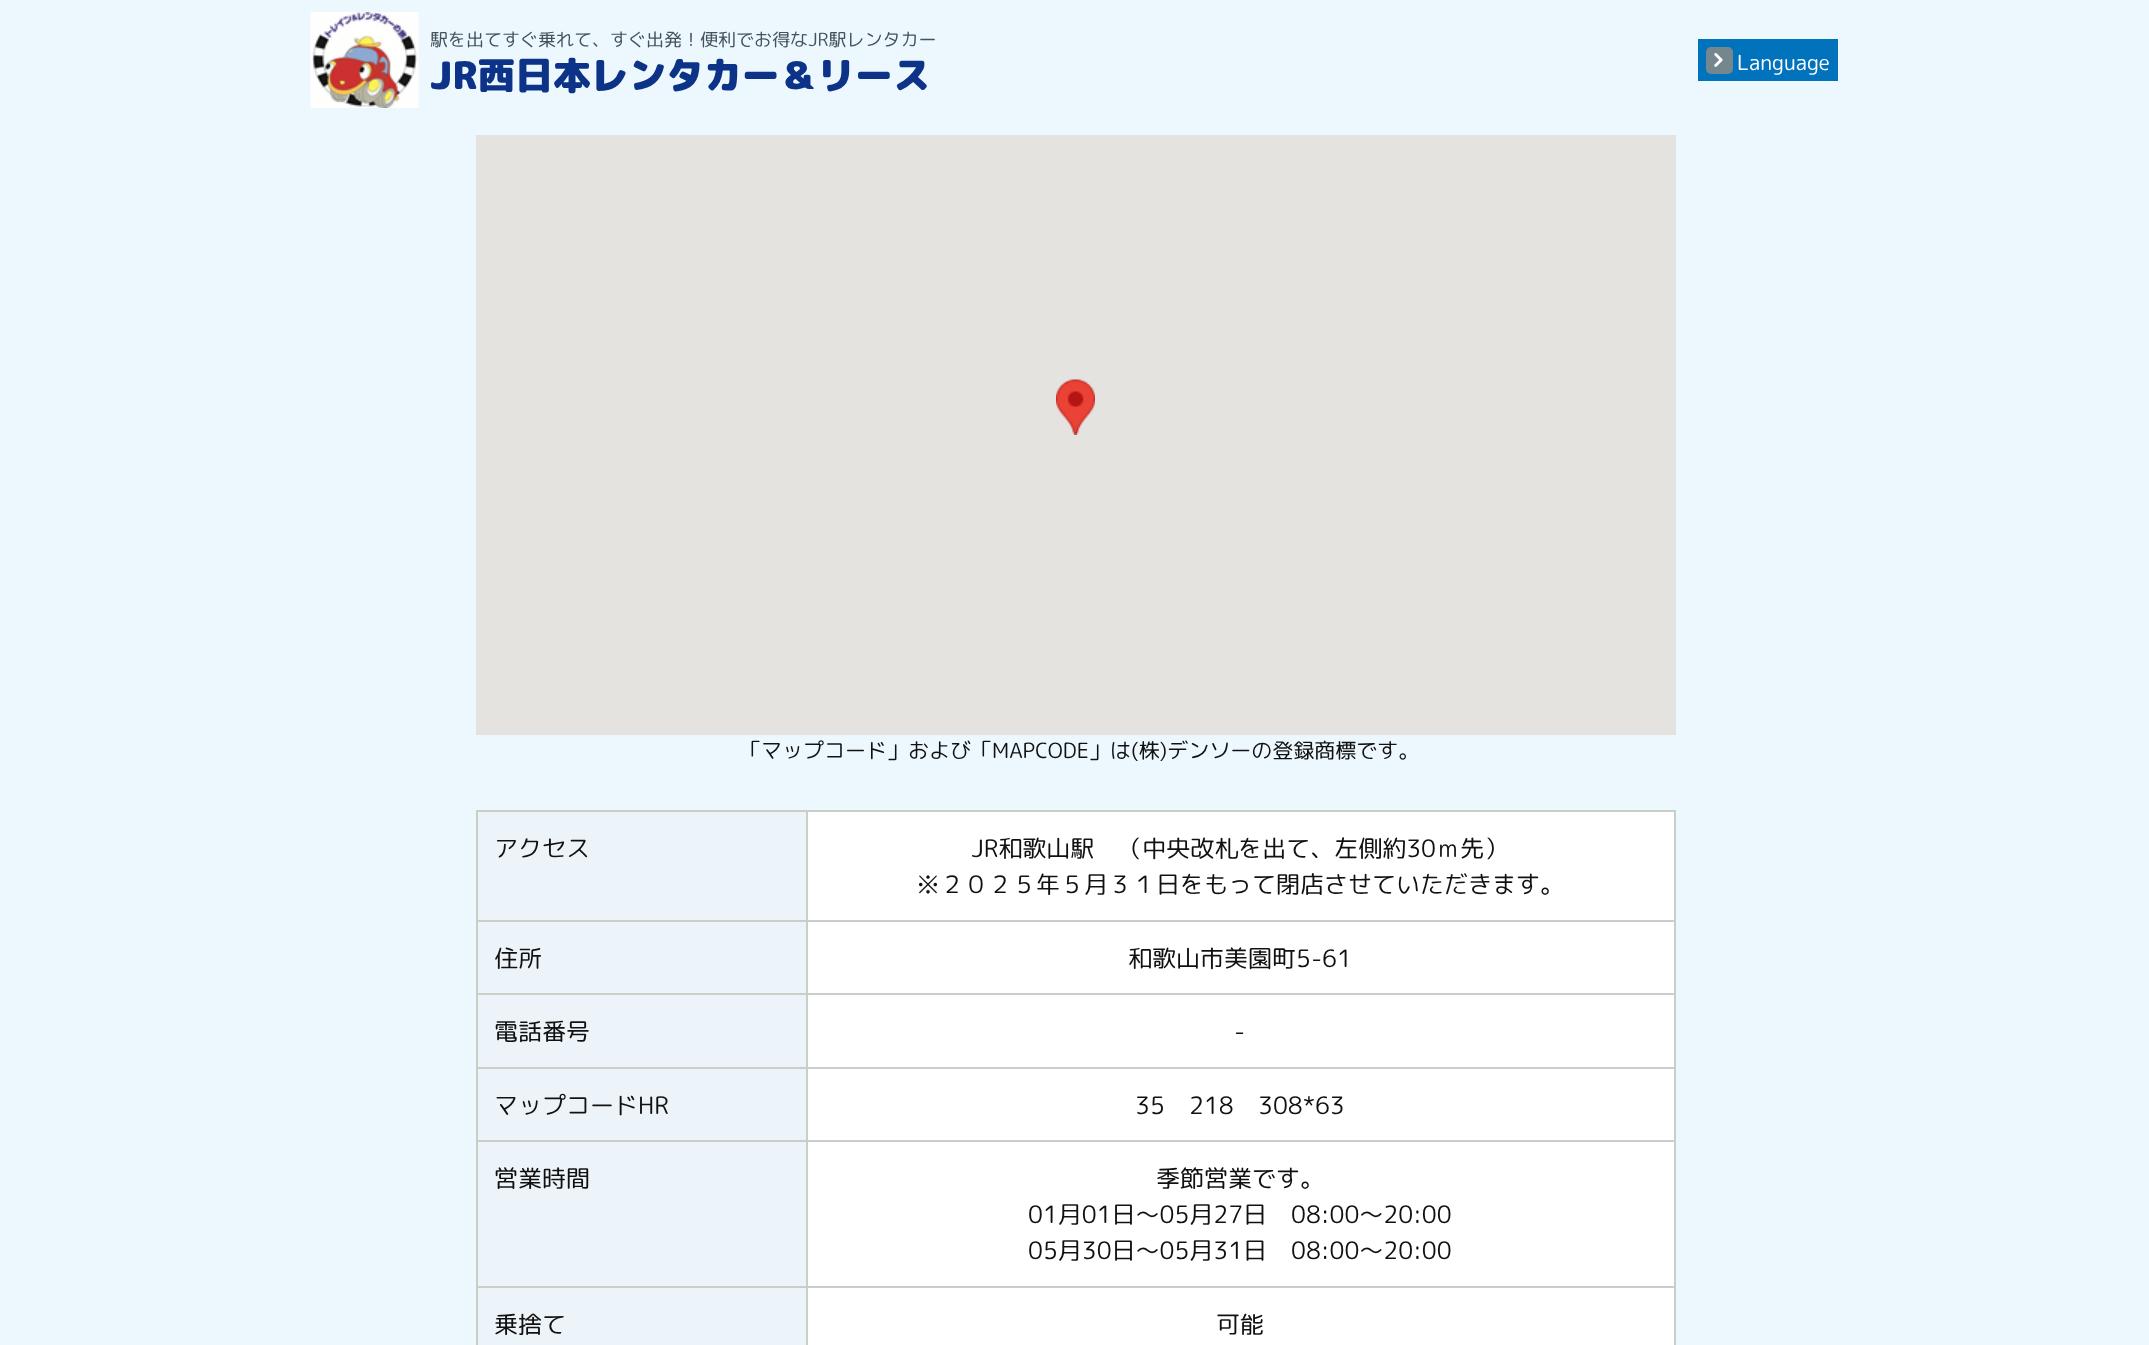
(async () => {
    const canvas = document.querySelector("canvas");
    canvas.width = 2149;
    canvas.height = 1345;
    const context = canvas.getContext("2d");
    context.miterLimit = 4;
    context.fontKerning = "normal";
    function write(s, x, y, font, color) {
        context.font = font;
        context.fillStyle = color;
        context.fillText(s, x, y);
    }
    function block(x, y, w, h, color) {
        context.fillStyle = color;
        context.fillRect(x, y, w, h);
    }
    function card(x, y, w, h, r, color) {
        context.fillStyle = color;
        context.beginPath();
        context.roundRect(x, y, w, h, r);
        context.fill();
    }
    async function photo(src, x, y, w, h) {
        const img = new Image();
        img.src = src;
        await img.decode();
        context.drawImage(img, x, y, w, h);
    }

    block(0, 0, 2149, 1345, "rgb(237, 248, 254)");
    await photo("media/1.png", 310, 12, 109, 96);
    write("駅を出てすぐ乗れて、すぐ出発！便利でお得なJR駅レンタカー", 430, 46, "18px 'Rounded Mplus 1c'", "rgb(70, 83, 92)");
    write("JR西日本レンタカー＆リース", 430, 89, "900 37.75px 'Rounded Mplus 1c'", "rgb(12, 51, 136)");
    block(1698, 39, 140, 42, "rgb(1, 114, 188)");
    card(1706, 47, 27, 27, 5, "rgb(118, 134, 141)");
    await photo("media/2.png", 1714, 53, 9, 14);
    write("Language", 1737, 70, "21px 'Rounded Mplus 1c'", "rgb(255, 255, 255)");
    block(476, 135, 1200, 600, "rgb(229, 227, 223)");
    await photo("media/3.png", 1056, 379, 39, 56);
    write("「マップコード」および「MAPCODE」は(株)デンソーの登録商標です。", 740, 758, "21px 'Rounded Mplus 1c'", "rgb(17, 17, 17)");
    block(478, 812, 328, 108, "rgb(237, 244, 249)");
    block(806, 810, 870, 2, "rgb(201, 206, 199)");
    block(806, 920, 870, 2, "rgb(201, 206, 199)");
    block(806, 993, 870, 2, "rgb(201, 206, 199)");
    block(806, 1067, 870, 2, "rgb(201, 206, 199)");
    block(806, 1140, 870, 2, "rgb(201, 206, 199)");
    block(806, 1286, 870, 2, "rgb(201, 206, 199)");
    block(806, 1286, 2, 59, "rgb(201, 206, 199)");
    block(476, 1286, 331, 2, "rgb(201, 206, 199)");
    block(806, 1140, 2, 147, "rgb(201, 206, 199)");
    block(476, 1140, 331, 2, "rgb(201, 206, 199)");
    block(806, 1067, 2, 75, "rgb(201, 206, 199)");
    block(476, 1067, 331, 2, "rgb(201, 206, 199)");
    block(806, 993, 2, 75, "rgb(201, 206, 199)");
    block(476, 993, 331, 2, "rgb(201, 206, 199)");
    block(806, 920, 2, 75, "rgb(201, 206, 199)");
    block(476, 920, 331, 2, "rgb(201, 206, 199)");
    block(806, 810, 2, 111, "rgb(201, 206, 199)");
    block(476, 810, 331, 2, "rgb(201, 206, 199)");
    block(476, 1286, 2, 59, "rgb(201, 206, 199)");
    block(476, 1140, 2, 147, "rgb(201, 206, 199)");
    block(476, 1067, 2, 75, "rgb(201, 206, 199)");
    block(476, 993, 2, 75, "rgb(201, 206, 199)");
    block(476, 920, 2, 75, "rgb(201, 206, 199)");
    block(476, 810, 2, 111, "rgb(201, 206, 199)");
    write("アクセス", 494, 857, "24px 'Rounded Mplus 1c'", "rgb(17, 17, 17)");
    block(808, 812, 866, 108, "rgb(255, 255, 255)");
    block(1674, 1286, 2, 59, "rgb(201, 206, 199)");
    block(1674, 1140, 2, 147, "rgb(201, 206, 199)");
    block(1674, 1067, 2, 75, "rgb(201, 206, 199)");
    block(1674, 993, 2, 75, "rgb(201, 206, 199)");
    block(1674, 920, 2, 75, "rgb(201, 206, 199)");
    block(1674, 810, 2, 111, "rgb(201, 206, 199)");
    write("JR和歌山駅　（中央改札を出て、左側約30ｍ先）", 971, 857, "24px 'Rounded Mplus 1c'", "rgb(17, 17, 17)");
    write("※２０２５年５月３１日をもって閉店させていただきます。", 916, 893, "24px 'Rounded Mplus 1c'", "rgb(17, 17, 17)");
    block(478, 922, 328, 71, "rgb(237, 244, 249)");
    write("住所", 494, 967, "24px 'Rounded Mplus 1c'", "rgb(17, 17, 17)");
    block(808, 922, 866, 71, "rgb(255, 255, 255)");
    write("和歌山市美園町5-61", 1128, 967, "24px 'Rounded Mplus 1c'", "rgb(17, 17, 17)");
    block(478, 995, 328, 72, "rgb(237, 244, 249)");
    write("電話番号", 494, 1040, "24px 'Rounded Mplus 1c'", "rgb(17, 17, 17)");
    block(808, 995, 866, 72, "rgb(255, 255, 255)");
    write("-", 1234, 1040, "24px 'Rounded Mplus 1c'", "rgb(17, 17, 17)");
    block(478, 1069, 328, 71, "rgb(237, 244, 249)");
    write("マップコードHR", 494, 1114, "24px 'Rounded Mplus 1c'", "rgb(17, 17, 17)");
    block(808, 1069, 866, 71, "rgb(255, 255, 255)");
    write("35", 1135, 1114, "24px 'Rounded Mplus 1c'", "rgb(17, 17, 17)");
    write("218", 1189, 1114, "24px 'Rounded Mplus 1c'", "rgb(17, 17, 17)");
    write("308*63", 1258, 1114, "24px 'Rounded Mplus 1c'", "rgb(17, 17, 17)");
    block(478, 1142, 328, 144, "rgb(237, 244, 249)");
    write("営業時間", 494, 1187, "24px 'Rounded Mplus 1c'", "rgb(17, 17, 17)");
    block(808, 1142, 866, 144, "rgb(255, 255, 255)");
    write("季節営業です。", 1156, 1187, "24px 'Rounded Mplus 1c'", "rgb(17, 17, 17)");
    write("01月01日〜05月27日", 1028, 1223, "24px 'Rounded Mplus 1c'", "rgb(17, 17, 17)");
    write("08:00〜20:00", 1291, 1223, "24px 'Rounded Mplus 1c'", "rgb(17, 17, 17)");
    write("05月30日〜05月31日", 1028, 1259, "24px 'Rounded Mplus 1c'", "rgb(17, 17, 17)");
    write("08:00〜20:00", 1291, 1259, "24px 'Rounded Mplus 1c'", "rgb(17, 17, 17)");
    block(478, 1288, 328, 57, "rgb(237, 244, 249)");
    write("乗捨て", 494, 1333, "24px 'Rounded Mplus 1c'", "rgb(17, 17, 17)");
    block(808, 1288, 866, 57, "rgb(255, 255, 255)");
    write("可能", 1216, 1333, "24px 'Rounded Mplus 1c'", "rgb(17, 17, 17)");
})();
